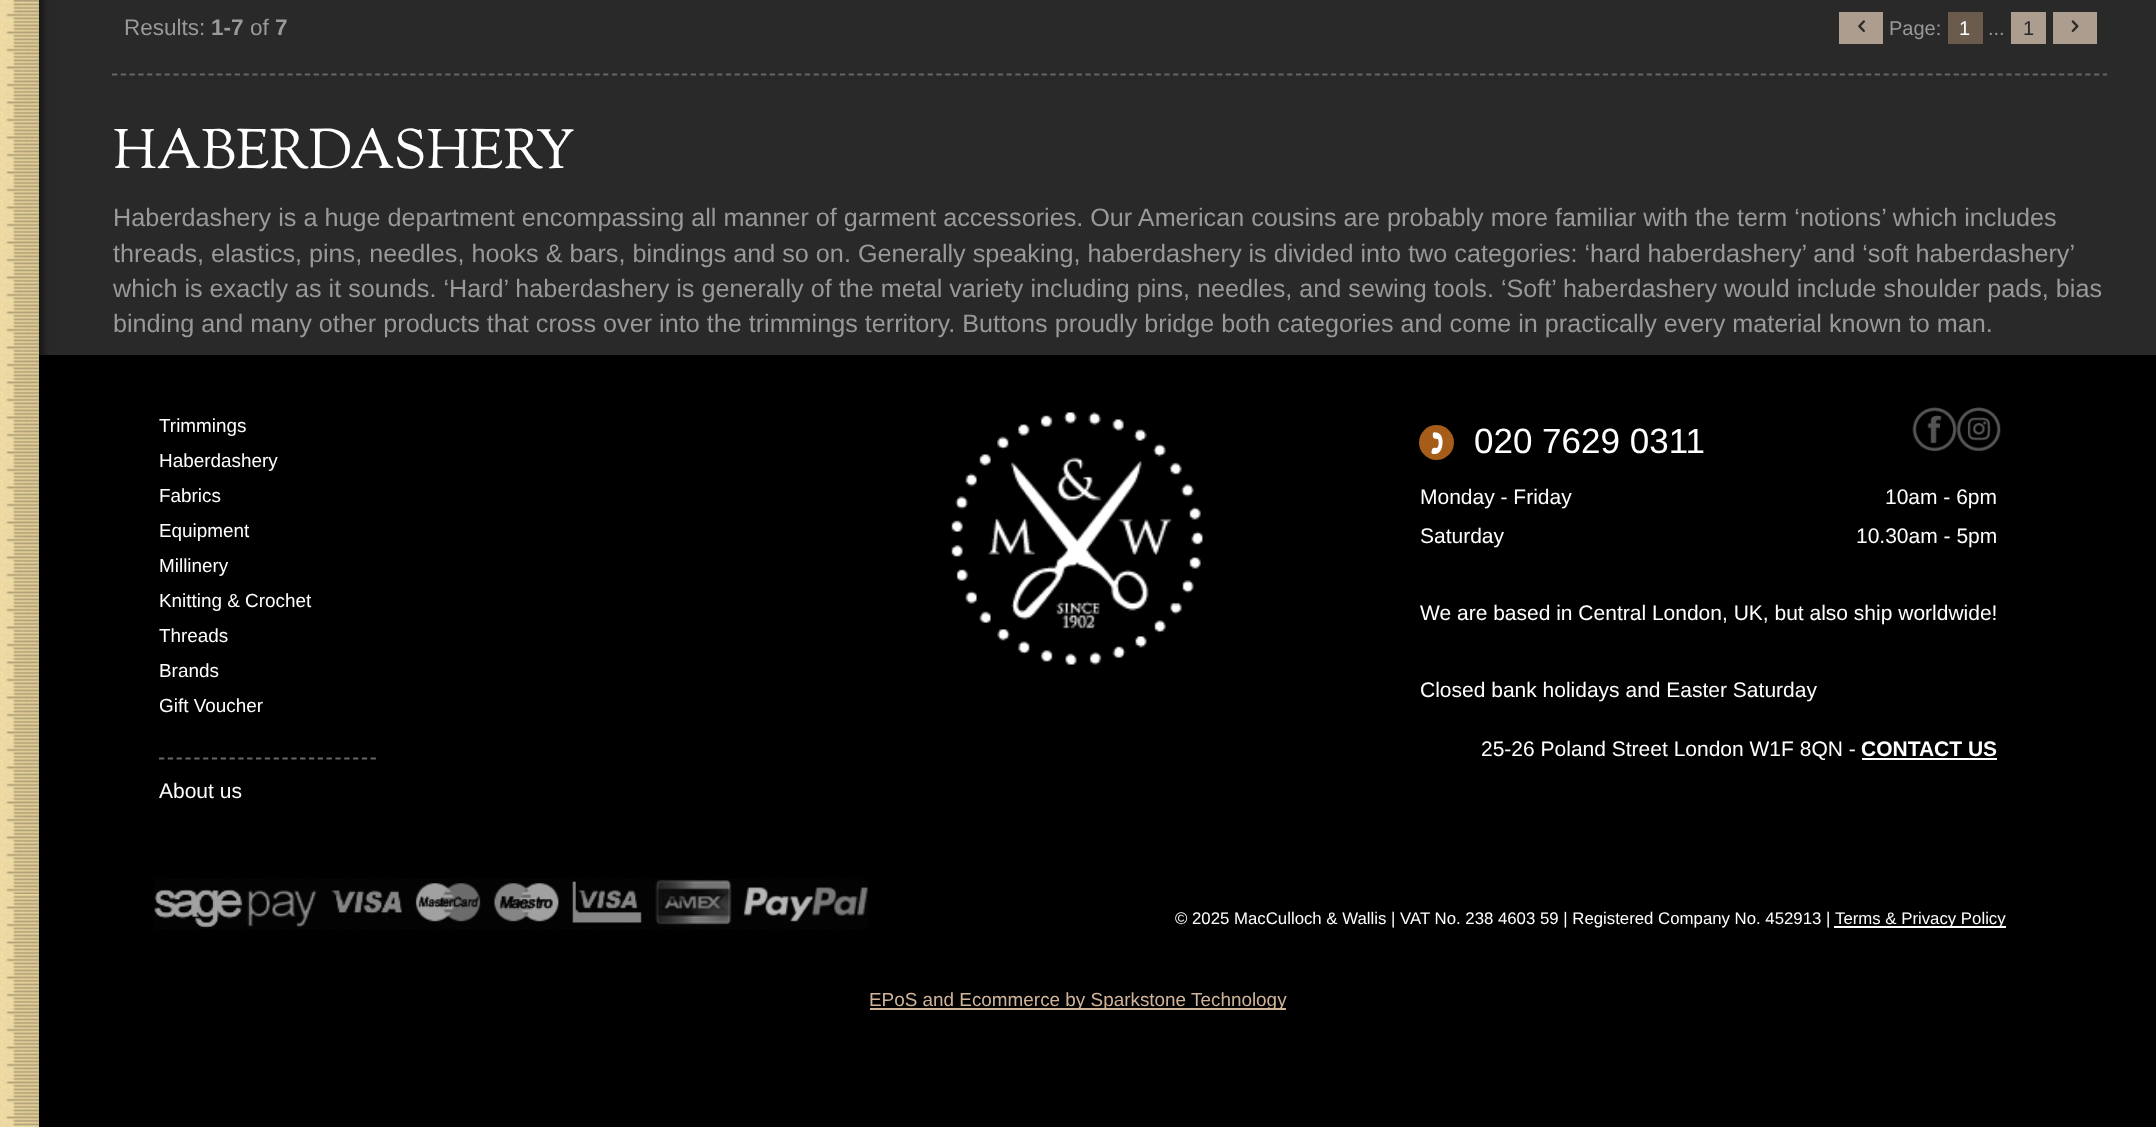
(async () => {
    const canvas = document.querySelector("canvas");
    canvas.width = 2156;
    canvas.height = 1127;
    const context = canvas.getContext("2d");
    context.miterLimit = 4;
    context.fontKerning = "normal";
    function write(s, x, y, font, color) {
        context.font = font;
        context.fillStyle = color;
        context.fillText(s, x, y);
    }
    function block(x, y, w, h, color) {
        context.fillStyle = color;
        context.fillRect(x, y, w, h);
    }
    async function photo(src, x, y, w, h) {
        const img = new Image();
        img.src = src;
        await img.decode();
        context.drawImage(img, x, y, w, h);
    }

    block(0, 0, 2156, 1127, "rgb(41, 41, 41)");
    block(39, 355, 2117, 772, "rgb(0, 0, 0)");
    context.fillStyle = "rgba(0, 0, 0, 0.4)";
    context.filter = "blur(2.5px)";
    context.beginPath();
    context.rect(2, -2, 42, 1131);
    context.fill();
    context.filter = "none";
    await photo("media/1.png", 0, 0, 39, 1127);
    context.beginPath();
    context.moveTo(112, 74.5);
    context.lineTo(2107, 74.5);
    context.strokeStyle = "rgb(102, 102, 102)";
    context.lineWidth = 1.8;
    context.setLineDash([5.25, 3.52]);
    context.stroke();
    write("Results:", 124, 35, "22.5px Liberation Sans", "rgb(153, 153, 153)");
    write("1-7", 211, 35, "bold 22.5px Liberation Sans", "rgb(153, 153, 153)");
    write("of", 250, 35, "22.5px Liberation Sans", "rgb(153, 153, 153)");
    write("7", 275, 35, "bold 22.5px Liberation Sans", "rgb(153, 153, 153)");
    block(1839, 12, 44, 32, "rgb(172, 157, 142)");
    await photo("media/2.png", 1858, 20, 7, 12);
    write("Page:", 1889, 35, "20px Liberation Sans", "rgb(153, 153, 153)");
    block(1948, 12, 35, 32, "rgb(106, 91, 76)");
    write("1", 1959, 35, "20px Liberation Sans", "rgb(255, 255, 255)");
    write("...", 1988, 35, "20px Liberation Sans", "rgb(153, 153, 153)");
    block(2011, 12, 35, 32, "rgb(172, 157, 142)");
    write("1", 2023, 35, "20px Liberation Sans", "rgb(41, 41, 41)");
    block(2053, 12, 44, 32, "rgb(172, 157, 142)");
    await photo("media/3.png", 2071, 20, 8, 12);
    write("HABERDASHERY", 113, 168, "55.1px Sorts Mill Goudy", "rgb(255, 255, 255)");
    write("Haberdashery is a huge department encompassing all manner of garment accessories. Our American cousins are probably more familiar with the term ‘notions’ which includes", 113, 226, "25.2px Liberation Sans", "rgb(153, 153, 153)");
    write("threads, elastics, pins, needles, hooks & bars, bindings and so on. Generally speaking, haberdashery is divided into two categories: ‘hard haberdashery’ and ‘soft haberdashery’", 113, 262, "25.2px Liberation Sans", "rgb(153, 153, 153)");
    write("which is exactly as it sounds. ‘Hard’ haberdashery is generally of the metal variety including pins, needles, and sewing tools. ‘Soft’ haberdashery would include shoulder pads, bias", 113, 297, "25.2px Liberation Sans", "rgb(153, 153, 153)");
    write("binding and many other products that cross over into the trimmings territory. Buttons proudly bridge both categories and come in practically every material known to man.", 113, 332, "25.2px Liberation Sans", "rgb(153, 153, 153)");
    write("Trimmings", 159, 432, "18.9px Liberation Sans", "rgb(255, 255, 255)");
    write("Haberdashery", 159, 467, "18.9px Liberation Sans", "rgb(255, 255, 255)");
    write("Fabrics", 159, 502, "18.9px Liberation Sans", "rgb(255, 255, 255)");
    write("Equipment", 159, 537, "18.9px Liberation Sans", "rgb(255, 255, 255)");
    write("Millinery", 159, 572, "18.9px Liberation Sans", "rgb(255, 255, 255)");
    write("Knitting & Crochet", 159, 607, "18.9px Liberation Sans", "rgb(255, 255, 255)");
    write("Threads", 159, 642, "18.9px Liberation Sans", "rgb(255, 255, 255)");
    write("Brands", 159, 677, "18.9px Liberation Sans", "rgb(255, 255, 255)");
    write("Gift Voucher", 159, 712, "18.9px Liberation Sans", "rgb(255, 255, 255)");
    context.beginPath();
    context.moveTo(159, 758.5);
    context.lineTo(376, 758.5);
    context.setLineDash([5.25, 3.57]);
    context.stroke();
    write("About us", 159, 798, "21px Liberation Sans", "rgb(255, 255, 255)");
    await photo("media/4.png", 951, 412, 252, 253);
    context.fillStyle = "rgb(165, 93, 25)";
    context.beginPath();
    context.arc(1436.5, 442.5, 17.5, 0, Math.PI * 2);
    context.fill();
    await photo("media/5.png", 1431, 432, 12, 23);
    write("020 7629 0311", 1474, 453, "35px Liberation Sans", "rgb(255, 255, 255)");
    await photo("media/7.png", 1956, 407, 45, 44);
    await photo("media/6.png", 1912, 407, 45, 44);
    write("Monday - Friday", 1420, 504, "21px Liberation Sans", "rgb(255, 255, 255)");
    write("10am - 6pm", 1885, 504, "21px Liberation Sans", "rgb(255, 255, 255)");
    write("Saturday", 1420, 543, "21px Liberation Sans", "rgb(255, 255, 255)");
    write("10.30am - 5pm", 1856, 543, "21px Liberation Sans", "rgb(255, 255, 255)");
    write("We are based in Central London, UK, but also ship worldwide!", 1420, 620, "21px Liberation Sans", "rgb(255, 255, 255)");
    write("Closed bank holidays and Easter Saturday", 1420, 697, "21px Liberation Sans", "rgb(255, 255, 255)");
    write("25-26 Poland Street London W1F 8QN -", 1481, 756, "21px Liberation Sans", "rgb(255, 255, 255)");
    write("CONTACT US", 1861, 756, "bold 21px Liberation Sans", "rgb(255, 255, 255)");
    block(1862, 758, 135, 2, "rgb(255, 255, 255)");
    await photo("media/8.png", 154, 879, 714, 50);
    write("© 2025 MacCulloch & Wallis | VAT No. 238 4603 59 | Registered Company No. 452913 |", 1175, 924, "16.8px Liberation Sans", "rgb(255, 255, 255)");
    block(1834, 926, 172, 2, "rgb(255, 255, 255)");
    write("Terms & Privacy Policy", 1835, 924, "16.8px Liberation Sans", "rgb(255, 255, 255)");
    block(870, 1008, 416, 2, "rgb(207, 180, 154)");
    write("EPoS and Ecommerce by Sparkstone Technology", 869, 1006, "18.9px Liberation Sans", "rgb(207, 180, 154)");
})();
